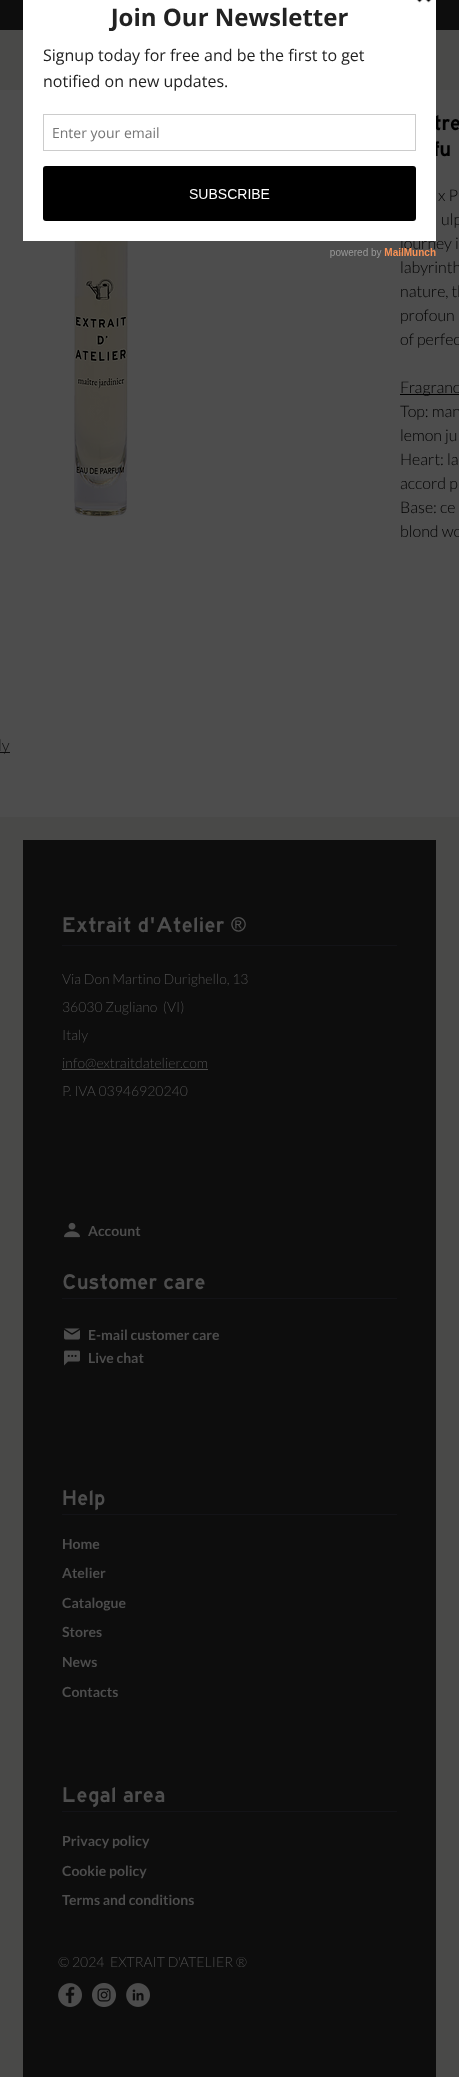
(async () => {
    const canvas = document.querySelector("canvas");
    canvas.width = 459;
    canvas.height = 2077;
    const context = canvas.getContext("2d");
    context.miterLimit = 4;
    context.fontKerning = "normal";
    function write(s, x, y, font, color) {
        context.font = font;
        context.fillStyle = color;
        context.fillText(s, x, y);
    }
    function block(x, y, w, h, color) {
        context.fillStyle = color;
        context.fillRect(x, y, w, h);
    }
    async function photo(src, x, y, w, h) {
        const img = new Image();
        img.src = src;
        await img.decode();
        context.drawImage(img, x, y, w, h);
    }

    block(0, 0, 459, 2077, "rgb(77, 77, 77)");
    block(0, 0, 459, 30, "rgb(13, 13, 13)");
    block(0, 30, 459, 60, "rgb(73, 73, 72)");
    await photo("media/2.png", 74, 241, 54, 276);
    write("tre", 433, 130, "22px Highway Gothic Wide", "rgb(0, 0, 0)");
    write("fu", 433, 156, "22px Highway Gothic Wide", "rgb(0, 0, 0)");
    write("journey i", 400, 249, "300 16px Lato", "rgb(0, 0, 0)");
    await photo("media/1.png", 23, 0, 413, 258);
    write("x P", 438, 201, "300 16px Lato", "rgb(0, 0, 0)");
    write("ulp", 441, 225, "300 16px Lato", "rgb(0, 0, 0)");
    write("labyrinth", 400, 273, "300 16px Lato", "rgb(0, 0, 0)");
    write("nature, th", 400, 297, "300 16px Lato", "rgb(0, 0, 0)");
    write("profoun", 400, 321, "300 16px Lato", "rgb(0, 0, 0)");
    write("of perfec", 400, 345, "300 16px Lato", "rgb(0, 0, 0)");
    block(400, 394, 59, 1, "rgb(0, 0, 0)");
    write("Fragranc", 400, 393, "300 16px Lato", "rgb(0, 0, 0)");
    write("Top: man", 400, 417, "300 16px Lato", "rgb(0, 0, 0)");
    write("lemon ju", 400, 441, "300 16px Lato", "rgb(0, 0, 0)");
    write("Heart: la", 400, 465, "300 16px Lato", "rgb(0, 0, 0)");
    write("accord p", 400, 489, "300 16px Lato", "rgb(0, 0, 0)");
    write("Base: ce", 400, 513, "300 16px Lato", "rgb(0, 0, 0)");
    write("blond wo", 400, 537, "300 16px Lato", "rgb(0, 0, 0)");
    block(0, 752, 10, 1, "rgb(13, 13, 13)");
    write("ly", -2, 751, "300 16px Lato", "rgb(13, 13, 13)");
    block(0, 817, 459, 1260, "rgb(73, 73, 72)");
    block(23, 840, 413, 1237, "rgb(13, 13, 13)");
    context.letterSpacing = "0.4px";
    write("Extrait d'Atelier ®", 62, 932, "22px Highway Gothic Wide", "rgb(77, 77, 77)");
    block(62, 945, 335, 1, "rgb(19, 19, 23)");
    context.letterSpacing = "0px";
    write("Via Don Martino Durighello, 13", 62, 984, "300 14px Lato", "rgb(77, 77, 77)");
    write("36030 Zugliano  (VI)", 62, 1012, "300 14px Lato", "rgb(77, 77, 77)");
    write("Italy", 62, 1040, "300 14px Lato", "rgb(77, 77, 77)");
    block(62, 1069, 146, 1, "rgb(77, 77, 77)");
    write("info@extraitdatelier.com", 62, 1068, "300 14px Lato", "rgb(77, 77, 77)");
    write("P. IVA 03946920240", 62, 1096, "300 14px Lato", "rgb(77, 77, 77)");
    await photo("media/3.png", 64, 1222, 16, 16);
    write("Account", 88, 1236, "bold 14px Lato", "rgb(77, 77, 77)");
    context.letterSpacing = "0.4px";
    write("Customer care", 62, 1289, "22px Highway Gothic Wide", "rgb(77, 77, 77)");
    block(62, 1298, 335, 1, "rgb(19, 19, 23)");
    await photo("media/4.png", 64, 1328, 16, 12);
    context.letterSpacing = "0px";
    write("E-mail customer care", 88, 1340, "bold 14px Lato", "rgb(77, 77, 77)");
    await photo("media/5.png", 64, 1350, 16, 16);
    write("Live chat", 88, 1363, "bold 14px Lato", "rgb(77, 77, 77)");
    context.letterSpacing = "0.4px";
    write("Help", 62, 1505, "22px Highway Gothic Wide", "rgb(77, 77, 77)");
    block(62, 1514, 335, 1, "rgb(19, 19, 23)");
    context.letterSpacing = "0px";
    write("Home", 62, 1549, "bold 14px Lato", "rgb(77, 77, 77)");
    write("Atelier", 62, 1578, "bold 14px Lato", "rgb(77, 77, 77)");
    write("Catalogue", 62, 1608, "bold 14px Lato", "rgb(77, 77, 77)");
    write("Stores", 62, 1637, "bold 14px Lato", "rgb(77, 77, 77)");
    write("News", 62, 1667, "bold 14px Lato", "rgb(77, 77, 77)");
    write("Contacts", 62, 1697, "bold 14px Lato", "rgb(77, 77, 77)");
    context.letterSpacing = "0.4px";
    write("Legal area", 62, 1802, "22px Highway Gothic Wide", "rgb(77, 77, 77)");
    block(62, 1811, 335, 1, "rgb(19, 19, 23)");
    context.letterSpacing = "0px";
    write("Privacy policy", 62, 1846, "bold 14px Lato", "rgb(77, 77, 77)");
    write("Cookie policy", 62, 1876, "bold 14px Lato", "rgb(77, 77, 77)");
    write("Terms and conditions", 62, 1905, "bold 14px Lato", "rgb(77, 77, 77)");
    write("© 2024  EXTRAIT D'ATELIER ®", 58, 1967, "300 14px Lato", "rgb(77, 77, 77)");
    await photo("media/6.png", 58, 1983, 24, 24);
    await photo("media/7.png", 92, 1983, 24, 24);
    await photo("media/8.png", 126, 1983, 24, 24);
})();
